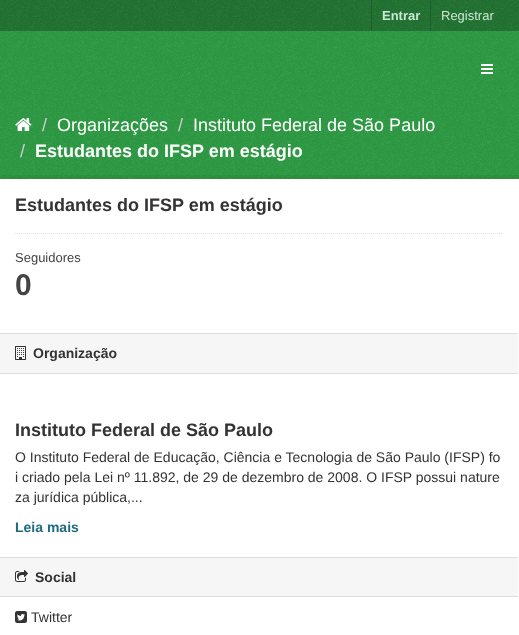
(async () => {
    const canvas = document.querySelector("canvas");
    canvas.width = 519;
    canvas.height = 635;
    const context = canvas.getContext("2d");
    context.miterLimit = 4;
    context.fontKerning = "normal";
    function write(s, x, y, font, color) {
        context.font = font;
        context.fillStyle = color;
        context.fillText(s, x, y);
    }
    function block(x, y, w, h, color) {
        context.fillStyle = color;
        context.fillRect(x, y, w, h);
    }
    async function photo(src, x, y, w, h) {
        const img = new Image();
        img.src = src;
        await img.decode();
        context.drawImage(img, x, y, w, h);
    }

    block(0, 0, 519, 635, "rgb(47, 155, 69)");
    await photo("media/1.png", 0, 108, 519, 71);
    block(0, 0, 519, 31, "rgb(35, 116, 52)");
    await photo("media/2.png", 0, 0, 519, 31);
    block(371, 0, 1, 31, "rgb(29, 96, 43)");
    write("Entrar", 382, 20, "bold 13px Liberation Sans", "rgb(203, 230, 209)");
    block(430, 0, 1, 31, "rgb(29, 96, 43)");
    write("Registrar", 441, 20, "13px Liberation Sans", "rgb(203, 230, 209)");
    await photo("media/3.png", 0, 31, 519, 77);
    await photo("media/4.png", 481, 64, 12, 10);
    await photo("media/5.png", 15, 118, 17, 13);
    write("/", 42, 131, "18px Liberation Sans", "rgb(204, 204, 204)");
    write("Organizações", 57, 131, "18px Liberation Sans", "rgb(255, 255, 255)");
    write("/", 178, 131, "18px Liberation Sans", "rgb(204, 204, 204)");
    write("Instituto Federal de São Paulo", 193, 131, "18px Liberation Sans", "rgb(255, 255, 255)");
    write("/", 20, 157, "18px Liberation Sans", "rgb(204, 204, 204)");
    write("Estudantes do IFSP em estágio", 35, 157, "bold 18px Liberation Sans", "rgb(255, 255, 255)");
    context.strokeStyle = "rgba(0, 0, 0, 0.05)";
    context.lineWidth = 4;
    context.strokeRect(-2, 177, 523, 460);
    block(0, 179, 519, 456, "rgb(255, 255, 255)");
    write("Estudantes do IFSP em estágio", 15, 211, "bold 18px Liberation Sans", "rgb(51, 51, 51)");
    context.beginPath();
    context.moveTo(15, 233.5);
    context.lineTo(503, 233.5);
    context.strokeStyle = "rgb(221, 221, 221)";
    context.lineWidth = 1;
    context.setLineDash([1, 1]);
    context.stroke();
    write("Seguidores", 15, 262, "13px Liberation Sans", "rgb(68, 68, 68)");
    write("0", 15, 295, "bold 30px Liberation Sans", "rgb(68, 68, 68)");
    block(0, 334, 518, 39, "rgb(246, 246, 246)");
    block(0, 333, 518, 1, "rgb(221, 221, 221)");
    block(0, 373, 518, 1, "rgb(221, 221, 221)");
    await photo("media/6.png", 15, 346, 11, 14);
    write("Organização", 33, 358, "bold 14px Liberation Sans", "rgb(51, 51, 51)");
    write("Instituto Federal de São Paulo", 15, 436, "bold 18px Liberation Sans", "rgb(51, 51, 51)");
    write("O Instituto Federal de Educação, Ciência e Tecnologia de São Paulo (IFSP) fo", 15, 462, "14px Liberation Sans", "rgb(51, 51, 51)");
    write("i criado pela Lei nº 11.892, de 29 de dezembro de 2008. O IFSP possui nature", 15, 482, "14px Liberation Sans", "rgb(51, 51, 51)");
    write("za jurídica pública,...", 15, 502, "14px Liberation Sans", "rgb(51, 51, 51)");
    write("Leia mais", 15, 532, "bold 14px Liberation Sans", "rgb(32, 107, 130)");
    block(0, 558, 518, 38, "rgb(246, 246, 246)");
    block(0, 557, 518, 1, "rgb(221, 221, 221)");
    block(0, 596, 518, 1, "rgb(221, 221, 221)");
    await photo("media/7.png", 15, 570, 13, 12);
    write("Social", 35, 582, "bold 14px Liberation Sans", "rgb(51, 51, 51)");
    await photo("media/8.png", 15, 611, 12, 12);
    write("Twitter", 31, 622, "14px Liberation Sans", "rgb(51, 51, 51)");
})();
